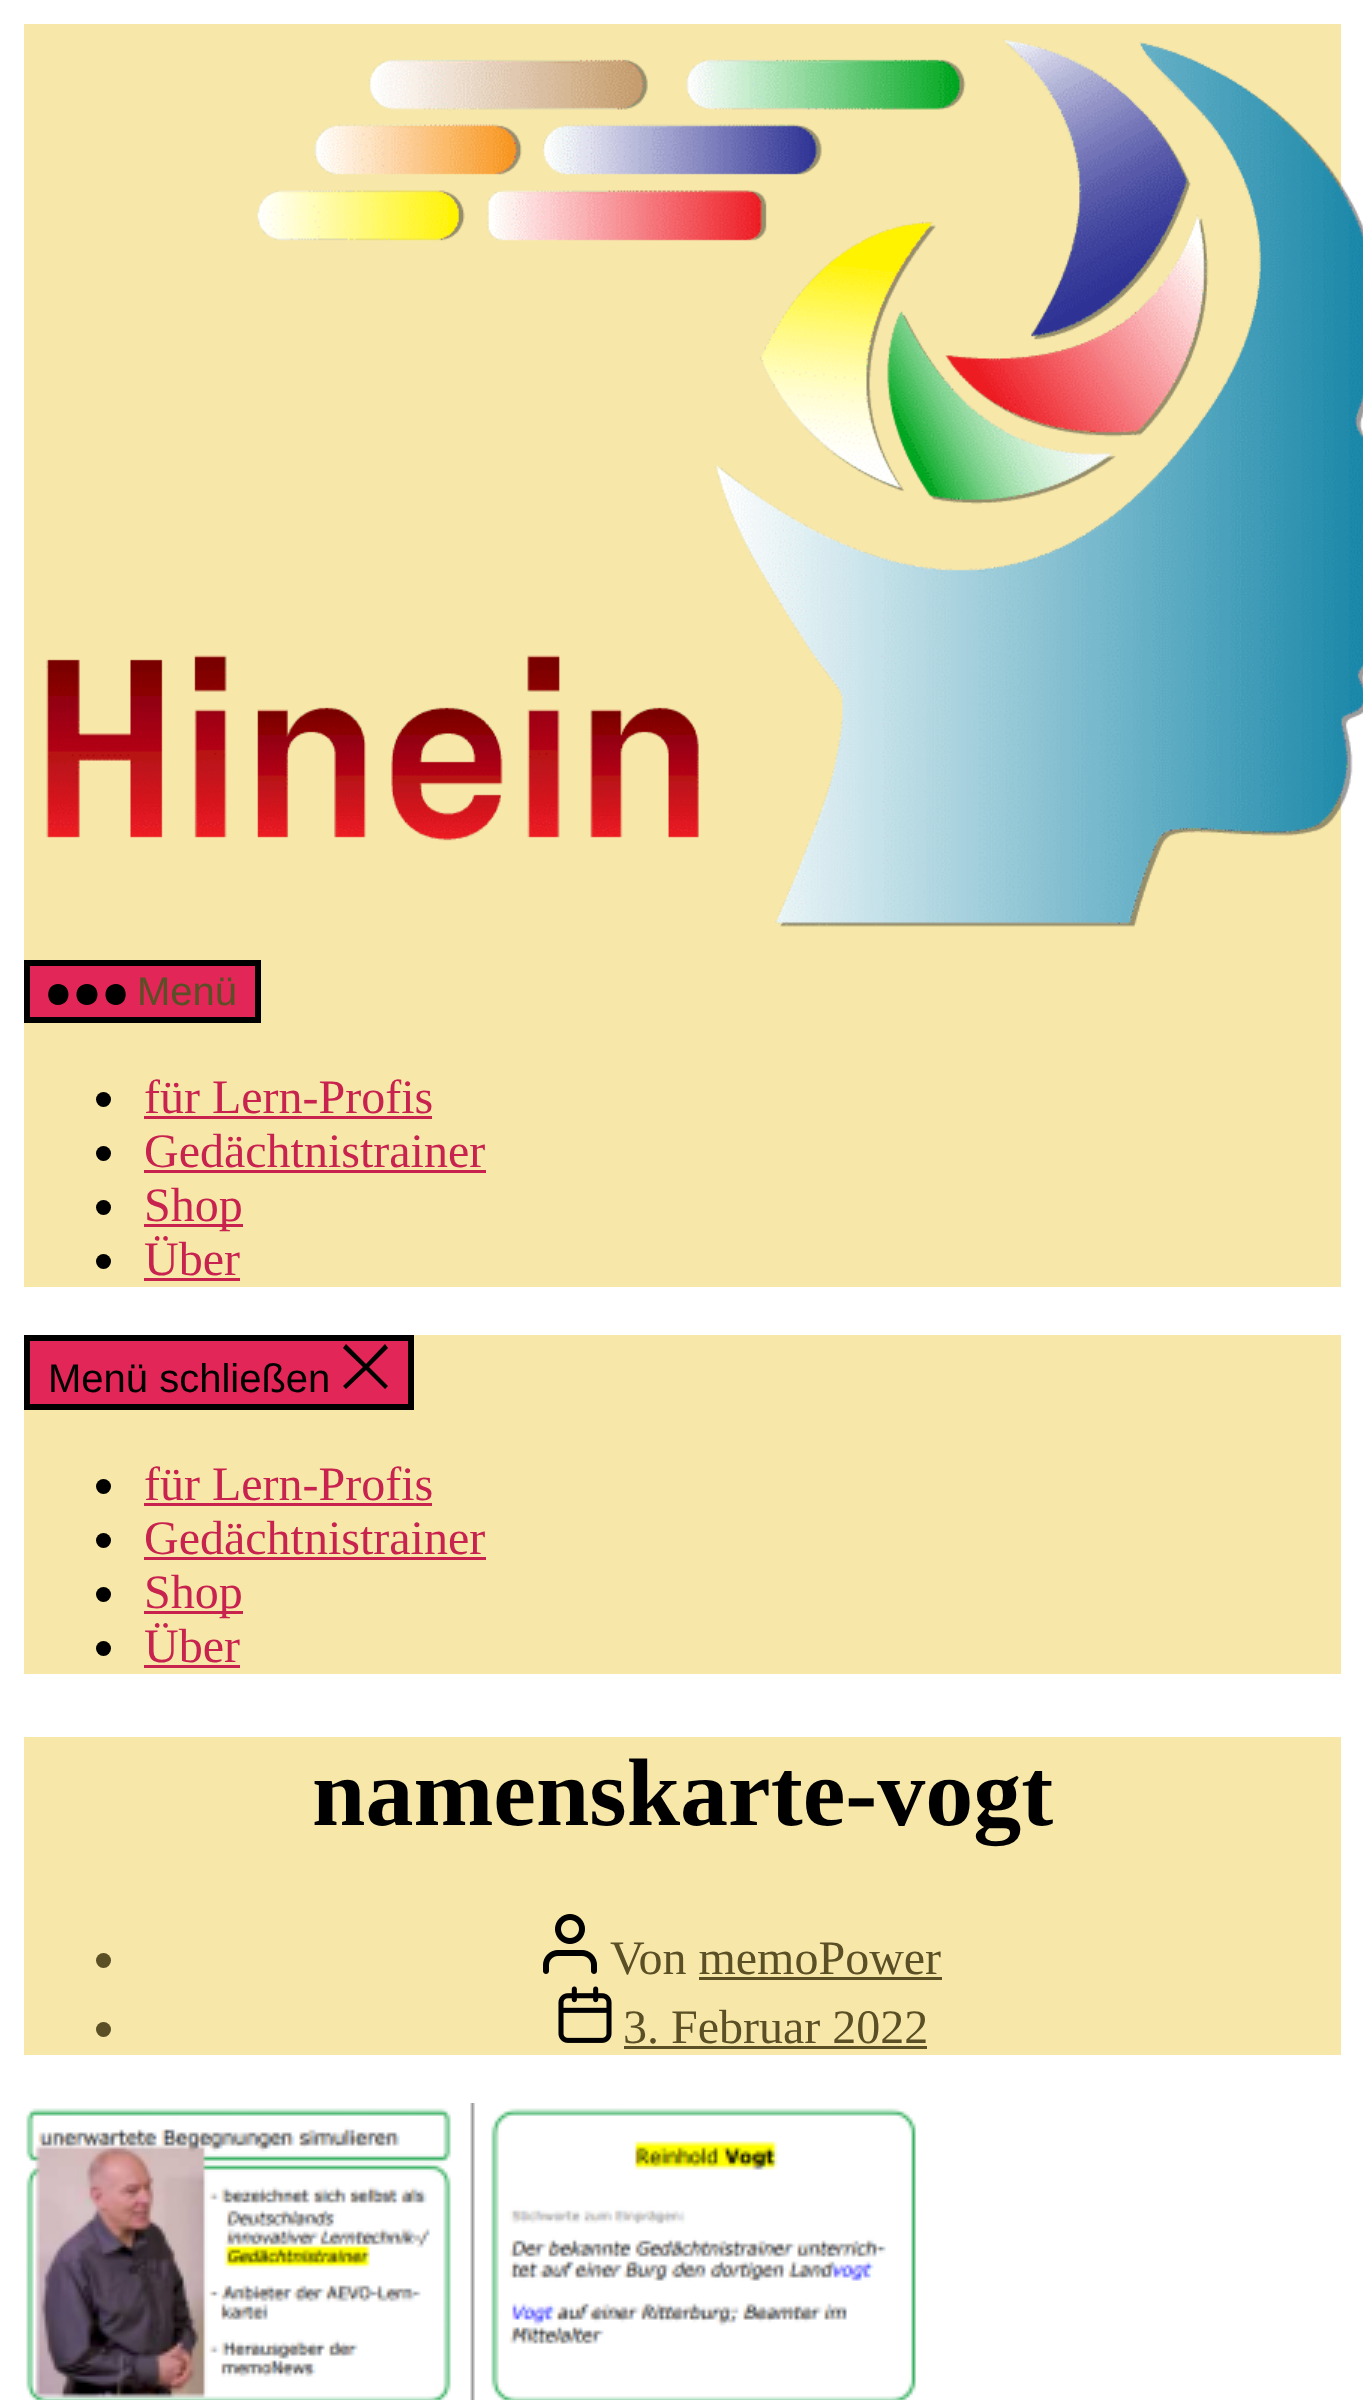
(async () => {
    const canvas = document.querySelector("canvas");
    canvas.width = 1363;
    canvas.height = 2400;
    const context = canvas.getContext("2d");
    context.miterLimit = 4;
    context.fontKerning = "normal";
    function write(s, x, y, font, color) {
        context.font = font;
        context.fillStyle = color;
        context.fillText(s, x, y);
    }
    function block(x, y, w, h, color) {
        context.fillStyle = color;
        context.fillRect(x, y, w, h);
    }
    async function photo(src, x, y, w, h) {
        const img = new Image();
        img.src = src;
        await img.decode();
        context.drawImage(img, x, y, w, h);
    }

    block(0, 0, 1363, 2400, "rgb(255, 255, 255)");
    block(24, 24, 1317, 1263, "rgb(247, 232, 170)");
    await photo("media/1.png", 45, 39, 1318, 888);
    context.fillStyle = "rgb(226, 38, 88)";
    context.beginPath();
    context.rect(27, 963, 231, 57);
    context.fill();
    context.strokeStyle = "rgb(0, 0, 0)";
    context.lineWidth = 6;
    context.stroke();
    write("Menü", 137, 1005, "40px Liberation Sans", "rgb(90, 79, 37)");
    context.fillStyle = "rgb(0, 0, 0)";
    context.beginPath();
    context.moveTo(58, 1005);
    context.bezierCurveTo(45, 1005, 45, 984, 58, 984);
    context.bezierCurveTo(72, 984, 72, 1005, 58, 1005);
    context.closePath();
    context.moveTo(87, 1005);
    context.bezierCurveTo(73, 1005, 73, 984, 87, 984);
    context.bezierCurveTo(101, 984, 101, 1005, 87, 1005);
    context.closePath();
    context.moveTo(116, 1005);
    context.bezierCurveTo(102, 1005, 102, 984, 116, 984);
    context.bezierCurveTo(129, 984, 129, 1005, 116, 1005);
    context.closePath();
    context.fill("evenodd");
    context.beginPath();
    context.arc(103.5, 1099.5, 7.5, 0, Math.PI * 2);
    context.fill();
    write("für Lern-Profis", 144, 1113, "48px Liberation Serif", "rgb(200, 34, 78)");
    block(144, 1116, 288, 3, "rgb(200, 34, 78)");
    context.fillStyle = "rgb(0, 0, 0)";
    context.beginPath();
    context.arc(103.5, 1153.5, 7.5, 0, Math.PI * 2);
    context.fill();
    write("Gedächtnistrainer", 144, 1167, "48px Liberation Serif", "rgb(200, 34, 78)");
    block(144, 1170, 342, 3, "rgb(200, 34, 78)");
    context.fillStyle = "rgb(0, 0, 0)";
    context.beginPath();
    context.arc(103.5, 1207.5, 7.5, 0, Math.PI * 2);
    context.fill();
    block(144, 1224, 99, 3, "rgb(200, 34, 78)");
    write("Shop", 144, 1221, "48px Liberation Serif", "rgb(200, 34, 78)");
    context.fillStyle = "rgb(0, 0, 0)";
    context.beginPath();
    context.arc(103.5, 1261.5, 7.5, 0, Math.PI * 2);
    context.fill();
    write("Über", 144, 1275, "48px Liberation Serif", "rgb(200, 34, 78)");
    block(144, 1278, 96, 3, "rgb(200, 34, 78)");
    block(24, 1335, 1317, 339, "rgb(247, 232, 170)");
    context.fillStyle = "rgb(226, 38, 88)";
    context.beginPath();
    context.rect(27, 1338, 384, 69);
    context.fill();
    context.stroke();
    write("Menü schließen", 48, 1392, "40px Liberation Sans", "rgb(0, 0, 0)");
    context.beginPath();
    context.moveTo(363, 1367);
    context.lineTo(343, 1348);
    context.lineTo(346, 1344);
    context.lineTo(366, 1364);
    context.lineTo(385, 1344);
    context.lineTo(388, 1348);
    context.lineTo(369, 1367);
    context.lineTo(388, 1386);
    context.lineTo(385, 1389);
    context.lineTo(366, 1370);
    context.lineTo(346, 1389);
    context.lineTo(343, 1386);
    context.closePath();
    context.fill("evenodd");
    context.beginPath();
    context.arc(103.5, 1486.5, 7.5, 0, Math.PI * 2);
    context.fill();
    write("für Lern-Profis", 144, 1500, "48px Liberation Serif", "rgb(200, 34, 78)");
    block(144, 1503, 288, 3, "rgb(200, 34, 78)");
    context.fillStyle = "rgb(0, 0, 0)";
    context.beginPath();
    context.arc(103.5, 1540.5, 7.5, 0, Math.PI * 2);
    context.fill();
    write("Gedächtnistrainer", 144, 1554, "48px Liberation Serif", "rgb(200, 34, 78)");
    block(144, 1557, 342, 3, "rgb(200, 34, 78)");
    context.fillStyle = "rgb(0, 0, 0)";
    context.beginPath();
    context.arc(103.5, 1594.5, 7.5, 0, Math.PI * 2);
    context.fill();
    block(144, 1611, 99, 3, "rgb(200, 34, 78)");
    write("Shop", 144, 1608, "48px Liberation Serif", "rgb(200, 34, 78)");
    context.fillStyle = "rgb(0, 0, 0)";
    context.beginPath();
    context.arc(103.5, 1648.5, 7.5, 0, Math.PI * 2);
    context.fill();
    write("Über", 144, 1662, "48px Liberation Serif", "rgb(200, 34, 78)");
    block(144, 1665, 96, 3, "rgb(200, 34, 78)");
    block(24, 1737, 1317, 318, "rgb(247, 232, 170)");
    write("namenskarte-vogt", 312, 1825, "bold 96px Liberation Serif", "rgb(0, 0, 0)");
    context.fillStyle = "rgb(90, 79, 37)";
    context.beginPath();
    context.arc(103.5, 1960.5, 7.5, 0, Math.PI * 2);
    context.fill();
    await photo("media/2.png", 543, 1914, 54, 60);
    write("Von memoPower", 610, 1974, "48px Liberation Serif", "rgb(90, 79, 37)");
    block(699, 1977, 243, 3, "rgb(90, 79, 37)");
    context.beginPath();
    context.arc(103.5, 2029.5, 7.5, 0, Math.PI * 2);
    context.fill();
    await photo("media/3.png", 558, 1986, 54, 57);
    write("3. Februar 2022", 623, 2043, "48px Liberation Serif", "rgb(90, 79, 37)");
    block(624, 2046, 303, 3, "rgb(90, 79, 37)");
    await photo("media/4.png", 26, 2103, 890, 297);
})();
